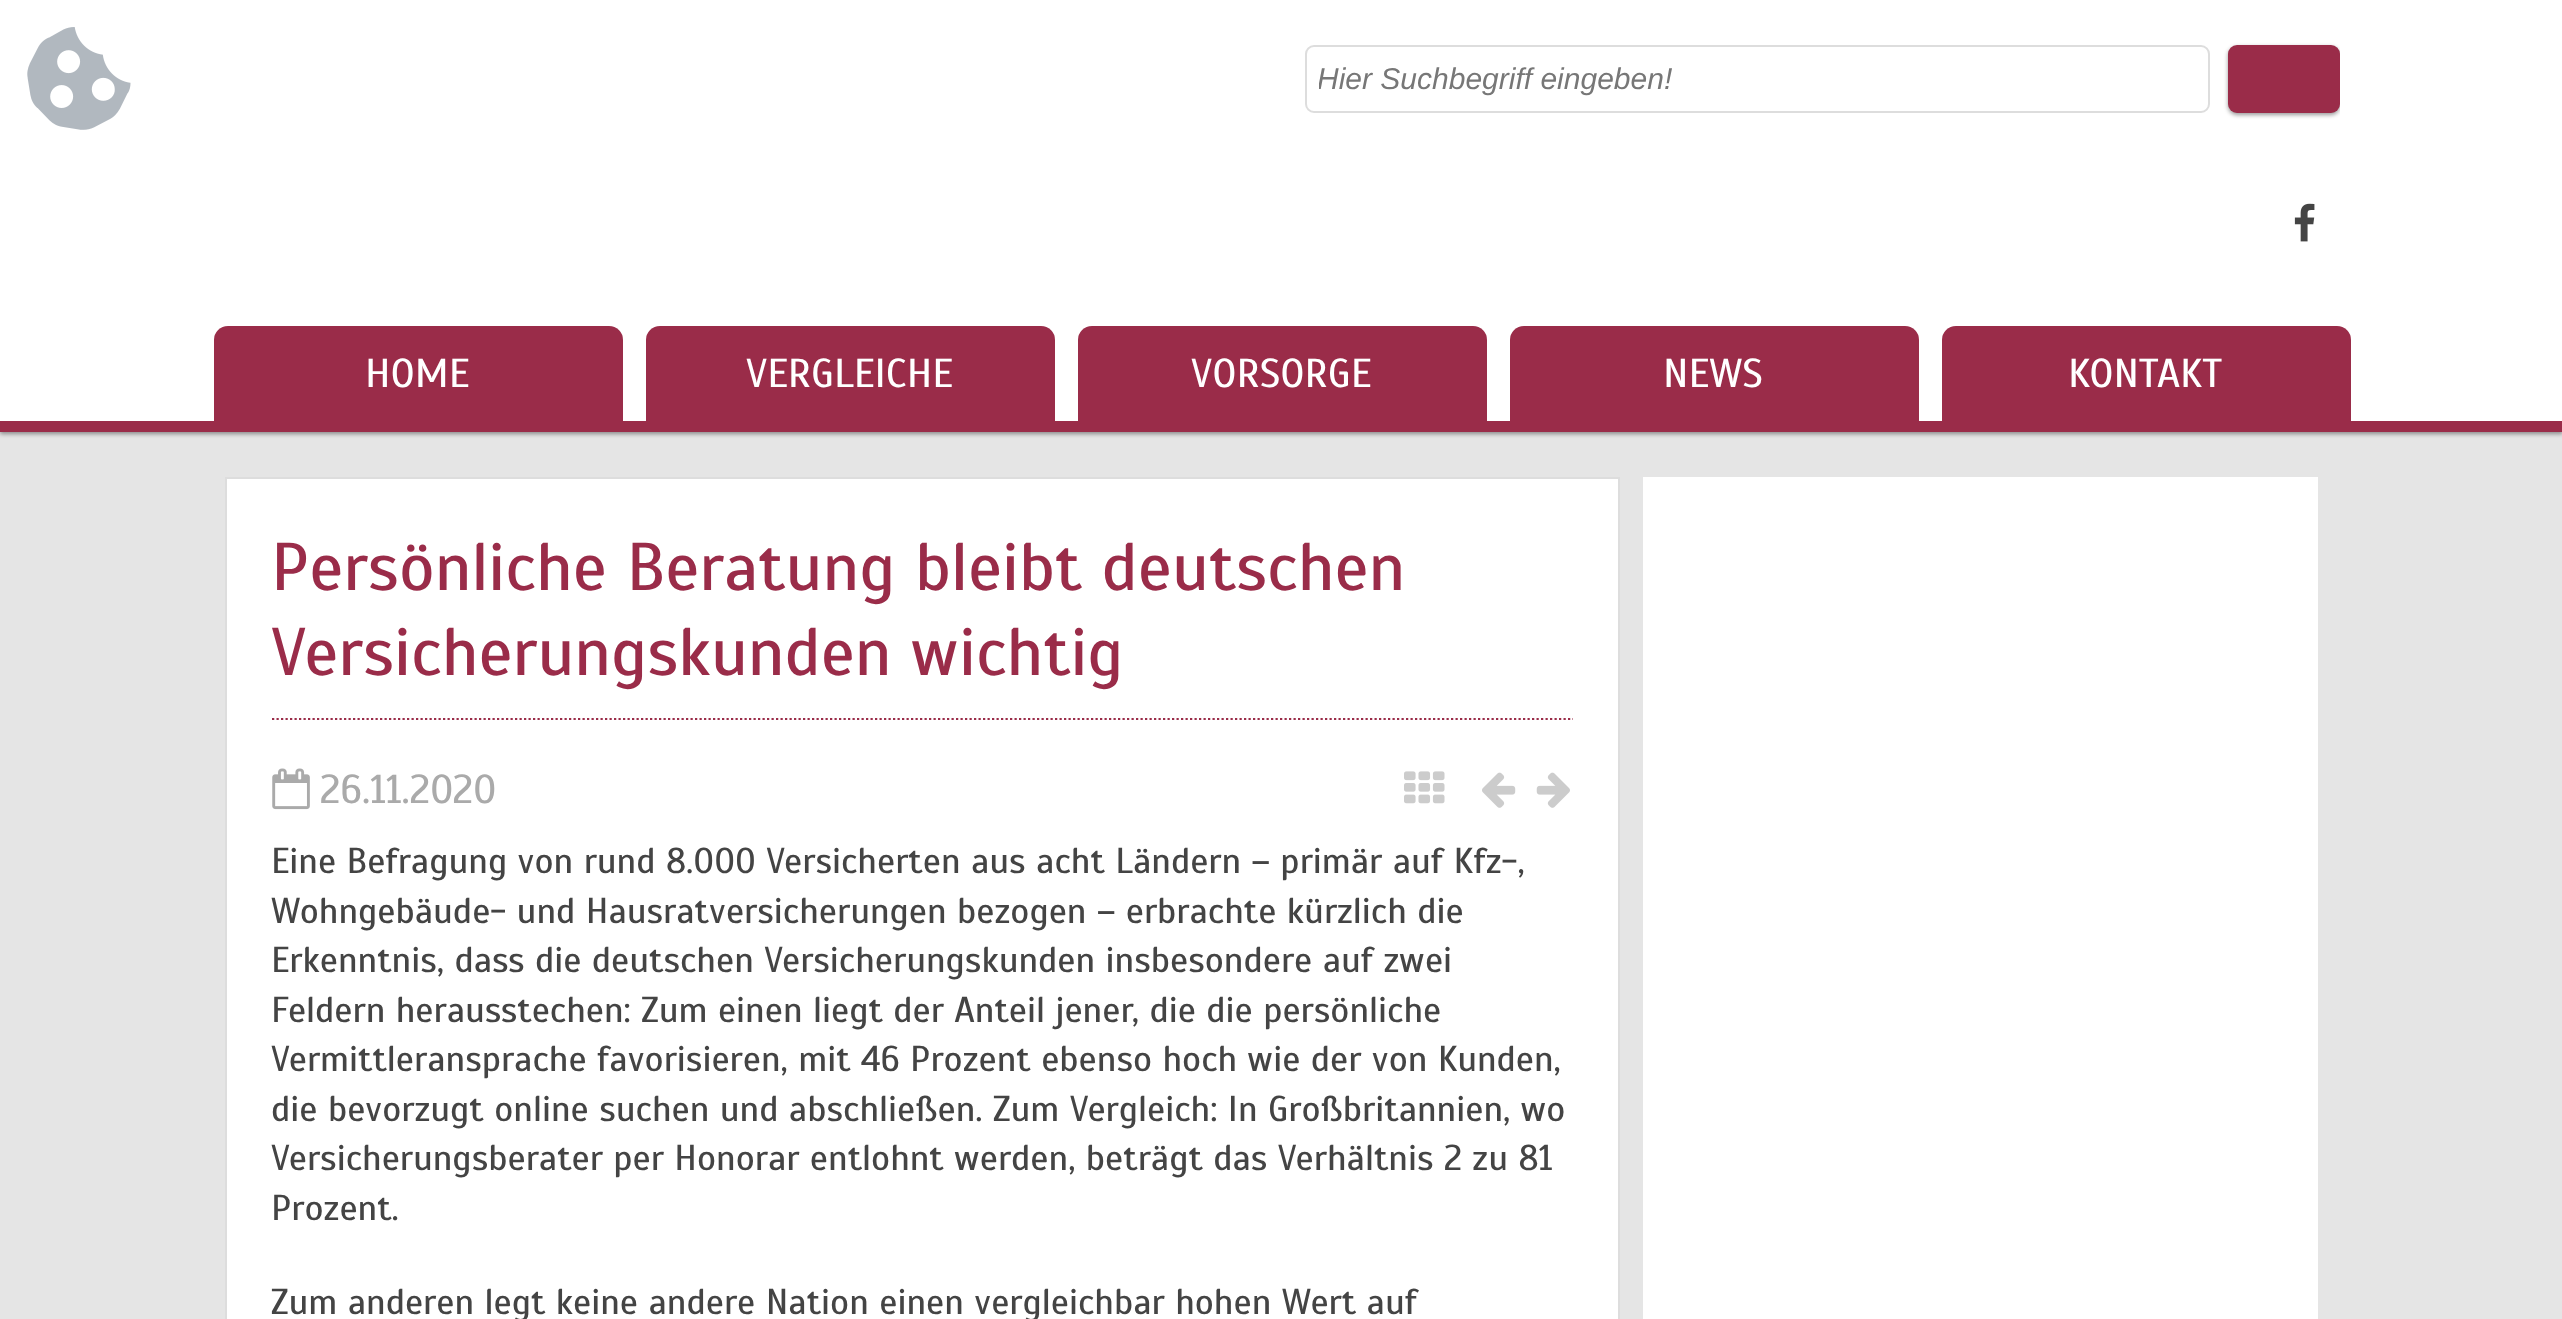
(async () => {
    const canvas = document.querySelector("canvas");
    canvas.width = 2562;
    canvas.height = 1319;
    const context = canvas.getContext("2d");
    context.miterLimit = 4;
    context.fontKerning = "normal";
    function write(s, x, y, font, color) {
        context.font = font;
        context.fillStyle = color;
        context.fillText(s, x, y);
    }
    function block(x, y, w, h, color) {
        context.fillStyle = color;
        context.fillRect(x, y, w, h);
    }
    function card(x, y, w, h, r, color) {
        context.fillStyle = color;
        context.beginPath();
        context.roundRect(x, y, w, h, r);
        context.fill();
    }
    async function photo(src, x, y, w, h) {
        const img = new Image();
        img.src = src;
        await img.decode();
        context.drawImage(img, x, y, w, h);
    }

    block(0, 0, 2562, 1319, "rgb(229, 229, 229)");
    context.fillStyle = "rgba(0, 0, 0, 0.4)";
    context.filter = "blur(2px)";
    context.beginPath();
    context.rect(0, 2, 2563, 432);
    context.fill();
    context.filter = "none";
    block(0, 0, 2562, 421, "rgb(255, 255, 255)");
    await photo("media/1.png", 27, 27, 104, 103);
    context.beginPath();
    context.roundRect(1306, 46, 903, 66, 8);
    context.strokeStyle = "rgb(221, 221, 221)";
    context.lineWidth = 2;
    context.stroke();
    context.save();
    context.beginPath();
    context.rect(1319, 63, 877, 34);
    context.clip();
    write("Hier Suchbegriff eingeben!", 1317, 89, "italic 30px Liberation Sans", "rgb(119, 119, 119)");
    context.restore();
    context.save();
    context.beginPath();
    context.rect(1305, 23, 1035, 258);
    context.clip();
    context.fillStyle = "rgba(0, 0, 0, 0.4)";
    context.filter = "blur(2px)";
    context.beginPath();
    context.roundRect(2228, 47, 112, 68, 9);
    context.fill();
    context.filter = "none";
    context.restore();
    card(2228, 45, 112, 68, 9, "rgb(154, 44, 73)");
    await photo("media/2.png", 2294, 203, 21, 39);
    block(0, 421, 2562, 11, "rgb(154, 44, 73)");
    context.beginPath();
    context.roundRect(214, 326, 409, 95, [14, 14, 0, 0]);
    context.fill();
    write("HOME", 365, 387, "40.5px Scada", "rgb(255, 255, 255)");
    context.fillStyle = "rgb(154, 44, 73)";
    context.beginPath();
    context.roundRect(646, 326, 409, 95, [14, 14, 0, 0]);
    context.fill();
    write("VERGLEICHE", 746, 387, "40.5px Scada", "rgb(255, 255, 255)");
    context.fillStyle = "rgb(154, 44, 73)";
    context.beginPath();
    context.roundRect(1078, 326, 409, 95, [14, 14, 0, 0]);
    context.fill();
    write("VORSORGE", 1191, 387, "40.5px Scada", "rgb(255, 255, 255)");
    context.fillStyle = "rgb(154, 44, 73)";
    context.beginPath();
    context.roundRect(1510, 326, 409, 95, [14, 14, 0, 0]);
    context.fill();
    write("NEWS", 1663, 387, "40.5px Scada", "rgb(255, 255, 255)");
    context.fillStyle = "rgb(154, 44, 73)";
    context.beginPath();
    context.roundRect(1942, 326, 409, 95, [14, 14, 0, 0]);
    context.fill();
    write("KONTAKT", 2068, 387, "40.5px Scada", "rgb(255, 255, 255)");
    context.beginPath();
    context.rect(226, 478, 1393, 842);
    context.fill();
    context.stroke();
    context.beginPath();
    context.moveTo(272, 719);
    context.lineTo(1573, 719);
    context.strokeStyle = "rgb(154, 44, 73)";
    context.lineWidth = 2.2;
    context.setLineDash([2.25, 2.25]);
    context.stroke();
    write("Persönliche Beratung bleibt deutschen", 271, 590, "67.5px Scada", "rgb(154, 44, 73)");
    write("Versicherungskunden wichtig", 271, 675, "67.5px Scada", "rgb(154, 44, 73)");
    await photo("media/3.png", 272, 768, 38, 42);
    write("26.11.2020", 320, 803, "40.5px Scada", "rgb(170, 170, 170)");
    await photo("media/4.png", 1404, 771, 41, 33);
    await photo("media/5.png", 1482, 772, 34, 36);
    await photo("media/6.png", 1536, 772, 34, 36);
    write("Eine Befragung von rund 8.000 Versicherten aus acht Ländern – primär auf Kfz-,", 271, 873, "36px Scada", "rgb(68, 68, 68)");
    write("Wohngebäude- und Hausratversicherungen bezogen – erbrachte kürzlich die", 271, 923, "36px Scada", "rgb(68, 68, 68)");
    write("Erkenntnis, dass die deutschen Versicherungskunden insbesondere auf zwei", 271, 972, "36px Scada", "rgb(68, 68, 68)");
    write("Feldern herausstechen: Zum einen liegt der Anteil jener, die die persönliche", 271, 1022, "36px Scada", "rgb(68, 68, 68)");
    write("Vermittleransprache favorisieren, mit 46 Prozent ebenso hoch wie der von Kunden,", 271, 1071, "36px Scada", "rgb(68, 68, 68)");
    write("die bevorzugt online suchen und abschließen. Zum Vergleich: In Großbritannien, wo", 271, 1121, "36px Scada", "rgb(68, 68, 68)");
    write("Versicherungsberater per Honorar entlohnt werden, beträgt das Verhältnis 2 zu 81", 271, 1170, "36px Scada", "rgb(68, 68, 68)");
    write("Prozent.", 271, 1220, "36px Scada", "rgb(68, 68, 68)");
    write("Zum anderen legt keine andere Nation einen vergleichbar hohen Wert auf", 271, 1314, "36px Scada", "rgb(68, 68, 68)");
    block(1643, 477, 675, 842, "rgb(255, 255, 255)");
})();
